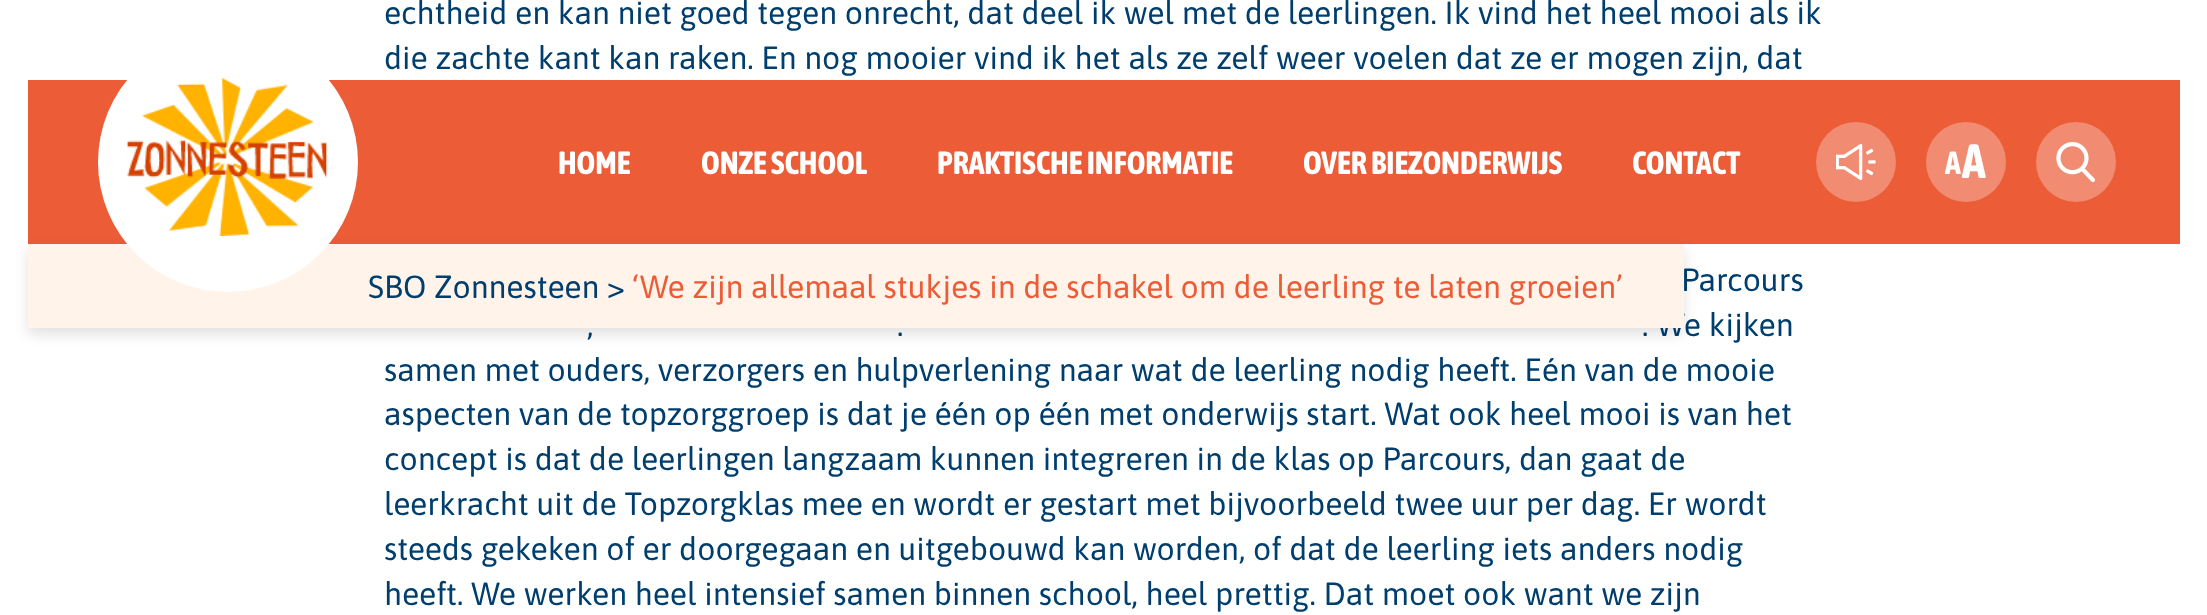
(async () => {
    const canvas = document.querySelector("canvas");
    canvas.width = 2207;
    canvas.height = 615;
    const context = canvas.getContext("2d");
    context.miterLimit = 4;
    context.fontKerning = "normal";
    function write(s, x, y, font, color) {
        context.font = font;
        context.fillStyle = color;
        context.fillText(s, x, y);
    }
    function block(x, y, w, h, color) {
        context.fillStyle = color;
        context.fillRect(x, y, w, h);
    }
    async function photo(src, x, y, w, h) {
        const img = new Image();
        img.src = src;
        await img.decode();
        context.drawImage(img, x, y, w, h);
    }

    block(0, 0, 2207, 615, "rgb(255, 255, 255)");
    write("echtheid en kan niet goed tegen onrecht, dat deel ik wel met de leerlingen. Ik vind het heel mooi als ik", 384, 24, "32px Asap", "rgb(0, 62, 110)");
    write("die zachte kant kan raken. En nog mooier vind ik het als ze zelf weer voelen dat ze er mogen zijn, dat", 384, 69, "32px Asap", "rgb(0, 62, 110)");
    write("Parcours", 1681, 291, "32px Asap", "rgb(0, 62, 110)");
    write(",", 587, 336, "32px Asap", "rgb(0, 62, 110)");
    write(".", 897, 336, "32px Asap", "rgb(0, 62, 110)");
    write(". We kijken", 1642, 336, "32px Asap", "rgb(0, 62, 110)");
    write("samen met ouders, verzorgers en hulpverlening naar wat de leerling nodig heeft. Eén van de mooie", 384, 381, "32px Asap", "rgb(0, 62, 110)");
    write("aspecten van de topzorggroep is dat je één op één met onderwijs start. Wat ook heel mooi is van het", 384, 425, "32px Asap", "rgb(0, 62, 110)");
    write("concept is dat de leerlingen langzaam kunnen integreren in de klas op Parcours, dan gaat de", 384, 470, "32px Asap", "rgb(0, 62, 110)");
    write("leerkracht uit de Topzorgklas mee en wordt er gestart met bijvoorbeeld twee uur per dag. Er wordt", 384, 515, "32px Asap", "rgb(0, 62, 110)");
    write("steeds gekeken of er doorgegaan en uitgebouwd kan worden, of dat de leerling iets anders nodig", 384, 560, "32px Asap", "rgb(0, 62, 110)");
    write("heeft. We werken heel intensief samen binnen school, heel prettig. Dat moet ook want we zijn", 384, 605, "32px Asap", "rgb(0, 62, 110)");
    block(28, 80, 2152, 164, "rgb(235, 92, 55)");
    context.fillStyle = "rgba(0, 0, 0, 0.12)";
    context.filter = "blur(7px)";
    context.beginPath();
    context.rect(28, 250, 1656, 84);
    context.fill();
    context.filter = "none";
    block(28, 244, 1656, 84, "rgb(255, 243, 234)");
    context.fillStyle = "rgb(255, 255, 255)";
    context.beginPath();
    context.arc(228, 162, 130, 0, Math.PI * 2);
    context.fill();
    await photo("media/1.png", 127, 78, 201, 158);
    write("HOME", 558, 174, "bold 32px Asap Condensed", "rgb(255, 255, 255)");
    write("ONZE SCHOOL", 701, 174, "bold 32px Asap Condensed", "rgb(255, 255, 255)");
    write("PRAKTISCHE INFORMATIE", 937, 174, "bold 32px Asap Condensed", "rgb(255, 255, 255)");
    write("OVER BIEZONDERWIJS", 1303, 174, "bold 32px Asap Condensed", "rgb(255, 255, 255)");
    write("CONTACT", 1632, 174, "bold 32px Asap Condensed", "rgb(255, 255, 255)");
    context.fillStyle = "rgb(241, 140, 114)";
    context.beginPath();
    context.arc(1856, 162, 40, 0, Math.PI * 2);
    context.fill();
    await photo("media/2.png", 1836, 143, 40, 38);
    context.beginPath();
    context.arc(1966, 162, 40, 0, Math.PI * 2);
    context.fill();
    write("A", 1945, 174, "bold 32px Asap Condensed", "rgb(255, 255, 255)");
    write("A", 1962, 178, "bold 48px Asap Condensed", "rgb(255, 255, 255)");
    context.fillStyle = "rgb(241, 140, 114)";
    context.beginPath();
    context.arc(2076, 162, 40, 0, Math.PI * 2);
    context.fill();
    await photo("media/3.png", 2056, 142, 39, 40);
    write("SBO Zonnesteen >", 368, 298, "32px Asap", "rgb(0, 62, 110)");
    write("‘We zijn allemaal stukjes in de schakel om de leerling te laten groeien’", 632, 298, "32px Asap", "rgb(235, 92, 55)");
})();
